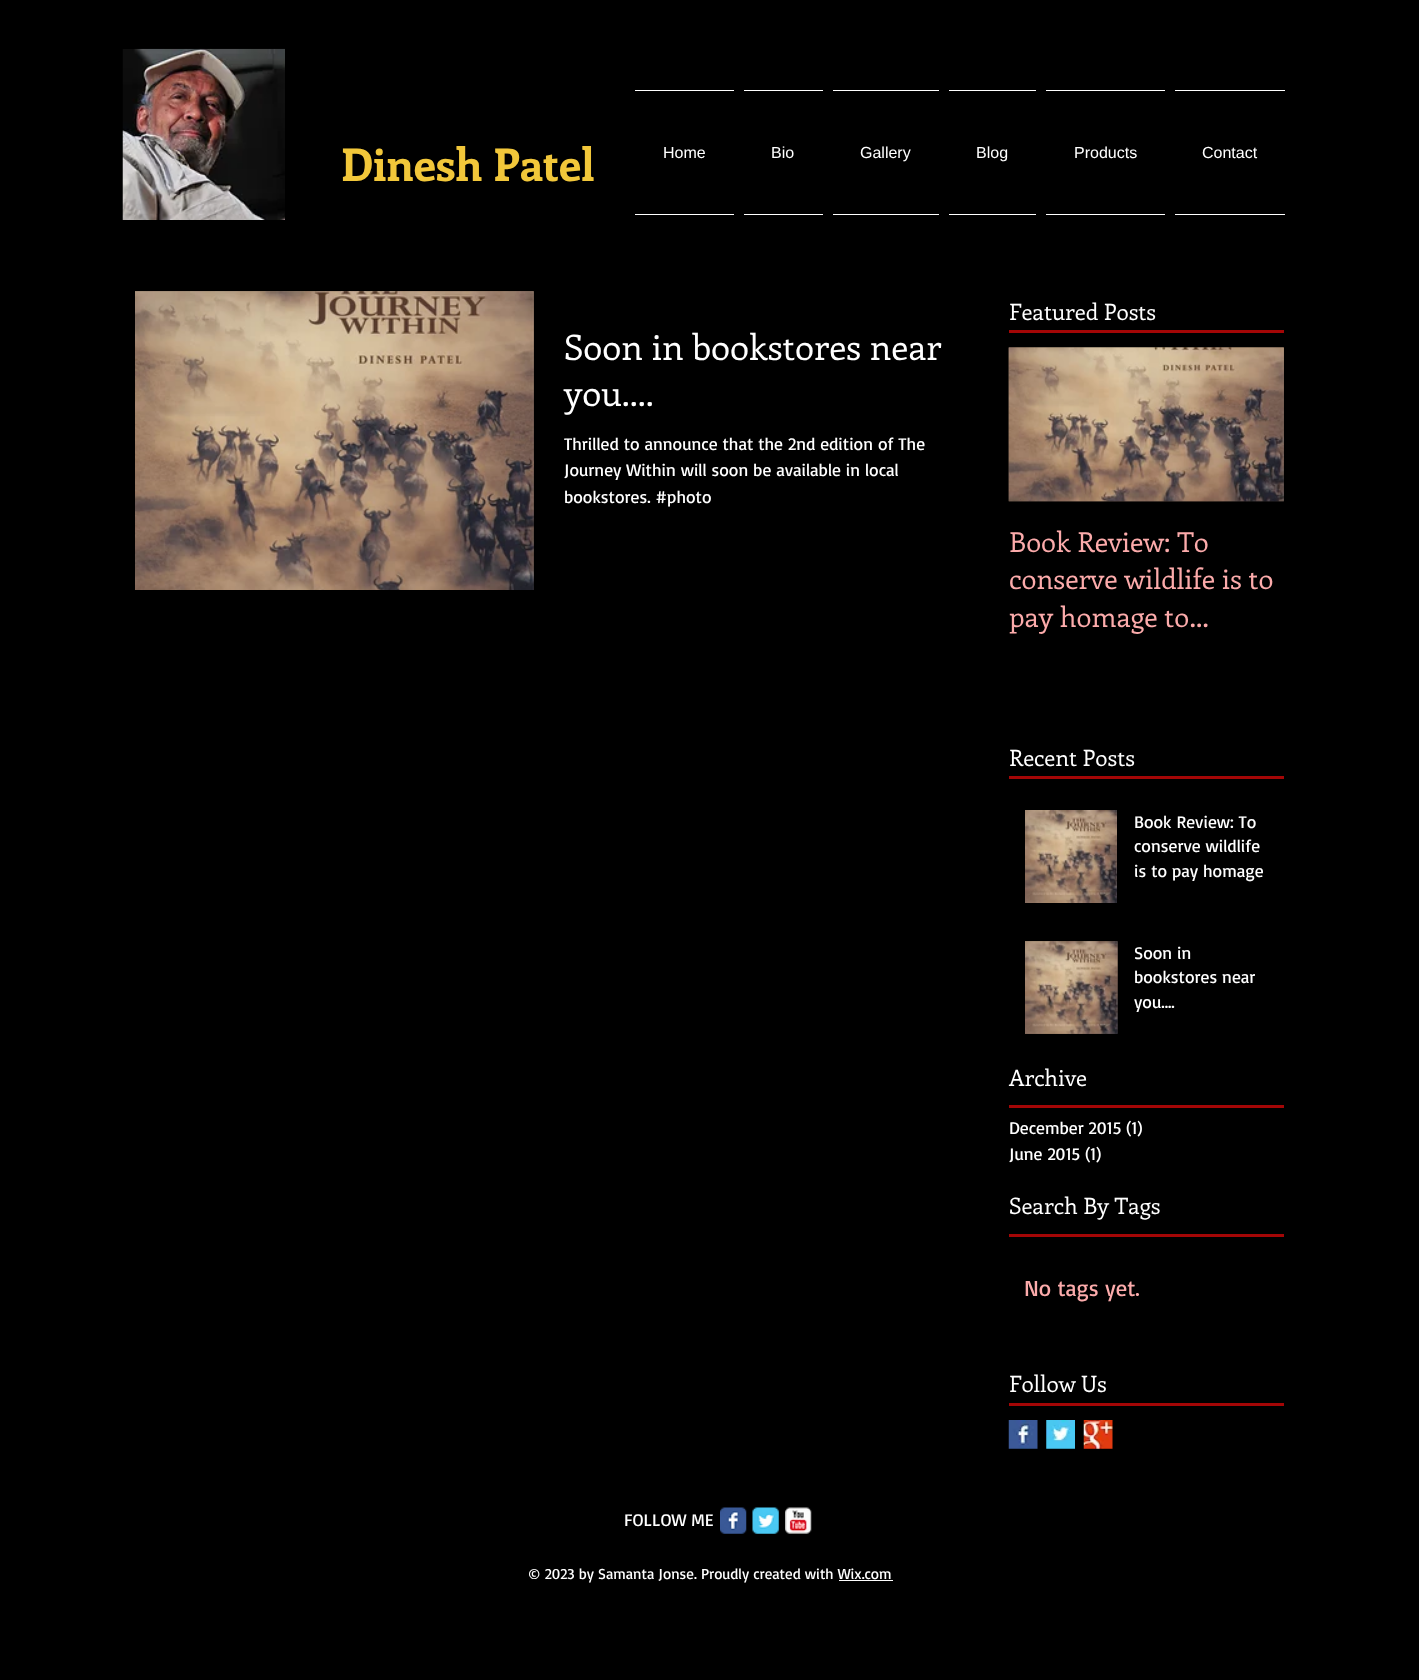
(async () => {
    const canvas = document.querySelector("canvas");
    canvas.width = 1419;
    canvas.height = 1680;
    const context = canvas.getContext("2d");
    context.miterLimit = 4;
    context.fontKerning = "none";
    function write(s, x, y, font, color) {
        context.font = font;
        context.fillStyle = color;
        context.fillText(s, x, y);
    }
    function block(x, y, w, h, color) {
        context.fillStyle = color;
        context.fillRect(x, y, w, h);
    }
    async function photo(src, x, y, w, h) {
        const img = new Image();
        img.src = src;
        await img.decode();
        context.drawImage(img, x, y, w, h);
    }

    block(0, 0, 1419, 1680, "rgb(0, 0, 0)");
    await photo("media/1.png", 122, 48, 163, 172);
    write("Dinesh Patel", 341, 181, "bold 45px Enriqueta", "rgb(242, 199, 58)");
    block(635, 90, 99, 1, "rgb(255, 255, 255)");
    block(635, 214, 99, 1, "rgb(255, 255, 255)");
    write("Home", 663, 158, "16px Liberation Sans", "rgb(255, 255, 255)");
    block(744, 90, 79, 1, "rgb(255, 255, 255)");
    block(744, 214, 79, 1, "rgb(255, 255, 255)");
    write("Bio", 771, 158, "16px Liberation Sans", "rgb(255, 255, 255)");
    block(833, 90, 106, 1, "rgb(255, 255, 255)");
    block(833, 214, 106, 1, "rgb(255, 255, 255)");
    write("Gallery", 860, 158, "16px Liberation Sans", "rgb(255, 255, 255)");
    block(949, 90, 87, 1, "rgb(255, 255, 255)");
    block(949, 214, 87, 1, "rgb(255, 255, 255)");
    write("Blog", 976, 158, "16px Liberation Sans", "rgb(255, 255, 255)");
    block(1046, 90, 119, 1, "rgb(255, 255, 255)");
    block(1046, 214, 119, 1, "rgb(255, 255, 255)");
    write("Products", 1074, 158, "16px Liberation Sans", "rgb(255, 255, 255)");
    block(1175, 90, 110, 1, "rgb(255, 255, 255)");
    block(1175, 214, 110, 1, "rgb(255, 255, 255)");
    write("Contact", 1202, 158, "16px Liberation Sans", "rgb(255, 255, 255)");
    write("Featured Posts", 1009, 320, "22.5px Enriqueta", "rgb(255, 255, 255)");
    block(1009, 330, 275, 3, "rgb(164, 6, 6)");
    await photo("media/2.png", 135, 291, 399, 299);
    await photo("media/3.png", 135, 291, 399, 299);
    write("Soon in bookstores near", 564, 360, "35px Enriqueta", "rgb(255, 255, 255)");
    write("you....", 564, 406, "35px Enriqueta", "rgb(255, 255, 255)");
    write("Thrilled to announce that the 2nd edition of The", 564, 450, "17.5px Basic", "rgb(255, 255, 255)");
    write("Journey Within will soon be available in local", 564, 476, "17.5px Basic", "rgb(255, 255, 255)");
    write("bookstores. #photo", 564, 503, "17.5px Basic", "rgb(255, 255, 255)");
    await photo("media/4.png", 1008, 347, 276, 155);
    await photo("media/5.png", 1008, 347, 276, 155);
    write("Book Review: To", 1009, 552, "27.5px Enriqueta", "rgb(252, 171, 171)");
    write("conserve wildlife is to", 1009, 589, "27.5px Enriqueta", "rgb(252, 171, 171)");
    write("pay homage to…", 1009, 627, "27.5px Enriqueta", "rgb(252, 171, 171)");
    write("Recent Posts", 1009, 766, "22.5px Enriqueta", "rgb(255, 255, 255)");
    block(1009, 776, 275, 3, "rgb(164, 6, 6)");
    await photo("media/6.png", 1025, 810, 92, 93);
    write("Book Review: To", 1134, 828, "17.5px Basic", "rgb(255, 255, 255)");
    write("conserve wildlife", 1134, 852, "17.5px Basic", "rgb(255, 255, 255)");
    write("is to pay homage", 1134, 877, "17.5px Basic", "rgb(255, 255, 255)");
    await photo("media/7.png", 1025, 941, 93, 93);
    await photo("media/8.png", 1025, 941, 93, 93);
    write("Soon in", 1134, 959, "17.5px Basic", "rgb(255, 255, 255)");
    write("bookstores near", 1134, 983, "17.5px Basic", "rgb(255, 255, 255)");
    write("you....", 1134, 1008, "17.5px Basic", "rgb(255, 255, 255)");
    write("Archive", 1009, 1086, "22.5px Enriqueta", "rgb(255, 255, 255)");
    block(1009, 1105, 275, 3, "rgb(164, 6, 6)");
    write("December 2015 (1)", 1009, 1134, "17.5px Basic", "rgb(255, 255, 255)");
    write("June 2015 (1)", 1009, 1160, "17.5px Basic", "rgb(255, 255, 255)");
    write("Search By Tags", 1009, 1214, "22.5px Enriqueta", "rgb(255, 255, 255)");
    block(1009, 1234, 275, 3, "rgb(164, 6, 6)");
    write("No tags yet.", 1024, 1296, "22.5px Basic", "rgb(252, 171, 171)");
    write("Follow Us", 1009, 1392, "22.5px Enriqueta", "rgb(255, 255, 255)");
    block(1009, 1403, 275, 3, "rgb(164, 6, 6)");
    await photo("media/9.png", 1008, 1420, 30, 29);
    await photo("media/10.png", 1046, 1420, 29, 29);
    await photo("media/11.png", 1083, 1420, 30, 29);
    write("FOLLOW ME", 624, 1526, "17.5px Basic", "rgb(255, 255, 255)");
    await photo("media/12.png", 720, 1507, 27, 27);
    await photo("media/13.png", 752, 1507, 27, 27);
    await photo("media/14.png", 785, 1507, 27, 27);
    write("© 2023 by Samanta Jonse. Proudly created with Wix.com", 528, 1579, "15px Basic", "rgb(255, 255, 255)");
    block(839, 1580, 54, 1, "rgb(255, 255, 255)");
})();
